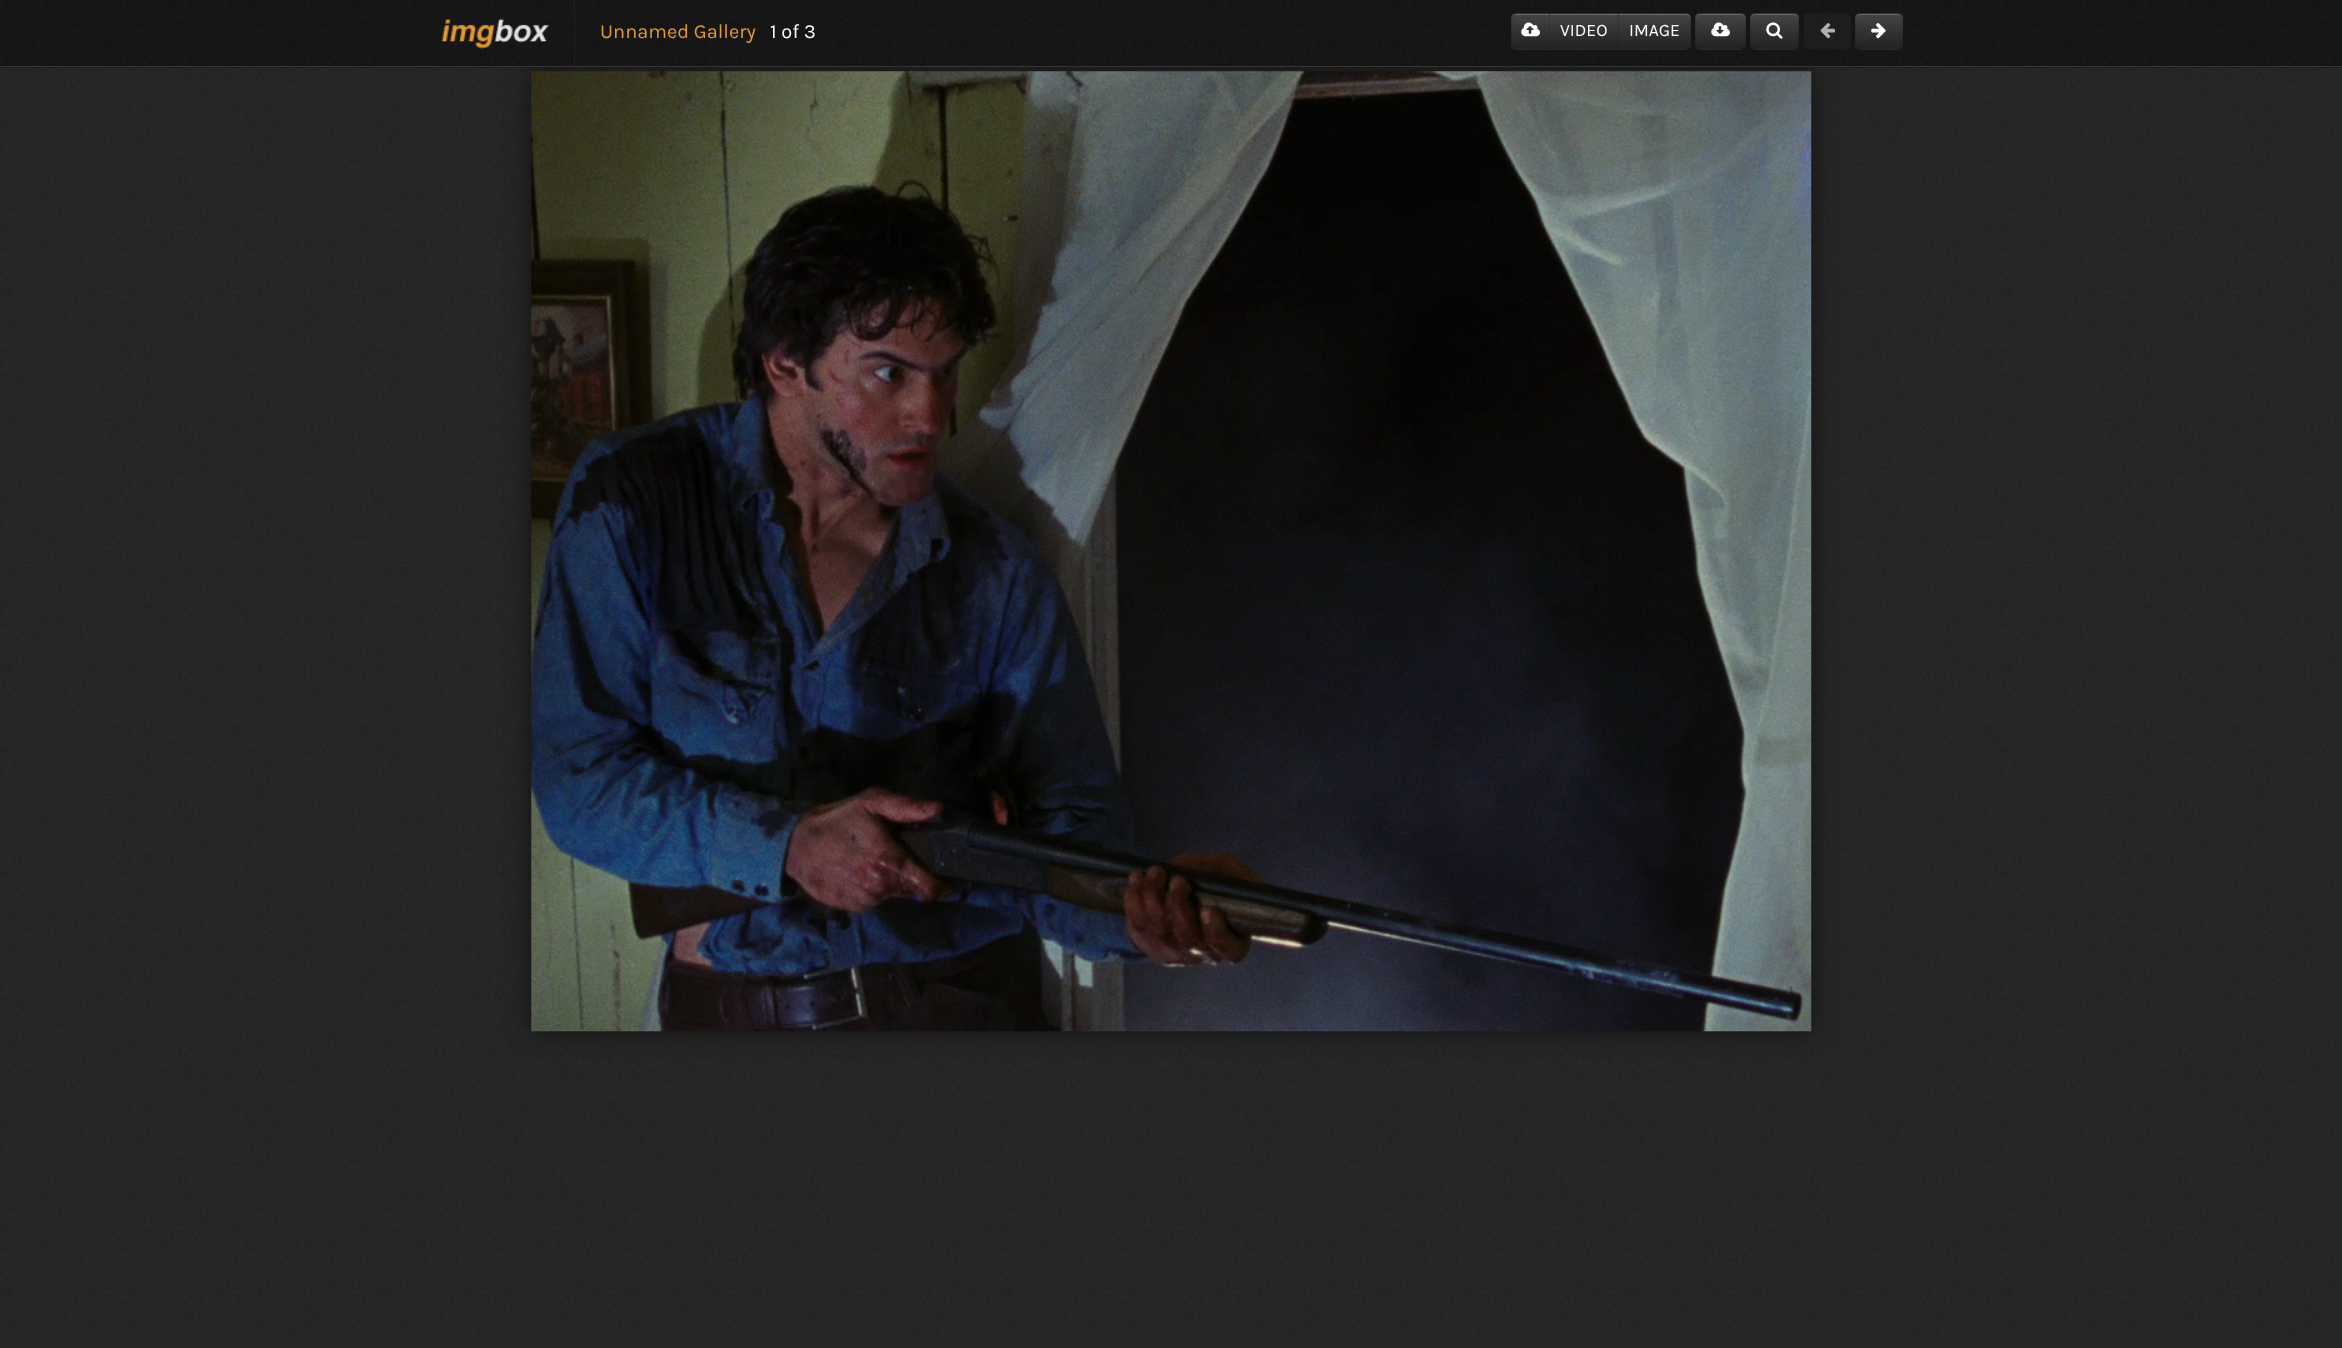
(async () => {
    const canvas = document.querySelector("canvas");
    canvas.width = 2342;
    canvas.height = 1348;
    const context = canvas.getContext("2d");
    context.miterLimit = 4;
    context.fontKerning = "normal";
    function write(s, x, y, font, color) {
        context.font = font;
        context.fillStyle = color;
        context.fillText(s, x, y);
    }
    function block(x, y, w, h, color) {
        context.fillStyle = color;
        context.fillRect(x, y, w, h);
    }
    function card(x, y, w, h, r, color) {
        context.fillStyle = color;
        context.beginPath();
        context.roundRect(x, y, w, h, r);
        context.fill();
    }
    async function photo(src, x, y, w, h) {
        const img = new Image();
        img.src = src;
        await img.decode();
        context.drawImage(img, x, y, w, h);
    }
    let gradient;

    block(0, 0, 2342, 1348, "rgb(38, 38, 38)");
    await photo("media/1.png", 0, 67, 2335, 1268);
    context.fillStyle = "rgb(17, 17, 17)";
    context.filter = "blur(12.5px)";
    context.beginPath();
    context.rect(531, 71, 1280, 960);
    context.fill();
    context.filter = "none";
    await photo("media/2.png", 0, 0, 2342, 68);
    block(0, 66, 2342, 1, "rgb(55, 55, 55)");
    await photo("media/3.png", 441, 18, 108, 31);
    block(574, 0, 1, 66, "rgb(32, 32, 32)");
    write("Unnamed Gallery", 600, 38, "20px Karla", "rgb(227, 153, 56)");
    write("1 of 3", 770, 38, "20px Karla", "rgb(253, 254, 255)");
    context.fillStyle = "rgb(54, 54, 54)";
    context.beginPath();
    context.roundRect(1511, 13, 39, 37, [5, 0, 0, 5]);
    context.fill();
    context.save();
    context.beginPath();
    context.roundRect(1511, 13, 39, 37, [5, 0, 0, 5]);
    context.clip();
    gradient = context.createLinearGradient(1531, 14, 1531, 49);
    gradient.addColorStop(0, "rgb(68, 68, 68)");
    gradient.addColorStop(1, "rgb(34, 34, 34)");
    context.fillStyle = gradient;
    context.fillRect(1511, 14, 38, 35);
    context.restore();
    context.fillStyle = "rgb(105, 105, 105)";
    context.beginPath();
    context.moveTo(1516, 15);
    context.lineTo(1549, 15);
    context.lineTo(1549, 14);
    context.lineTo(1517, 14);
    context.bezierCurveTo(1515.5, 14, 1514, 15, 1513.5, 16);
    context.bezierCurveTo(1514.5, 15.5, 1515, 15, 1516, 15);
    context.closePath();
    context.fill();
    context.fillStyle = "rgba(0, 0, 0, 0.1)";
    context.beginPath();
    context.moveTo(1516, 12.5);
    context.bezierCurveTo(1515, 12.5, 1513.5, 13, 1512.5, 14);
    context.lineTo(1513.5, 15);
    context.bezierCurveTo(1514, 14.5, 1515, 14, 1516, 14);
    context.lineTo(1548.5, 14);
    context.lineTo(1550, 12.5);
    context.closePath();
    context.fill();
    context.fillStyle = "rgba(0, 0, 0, 0.25)";
    context.beginPath();
    context.moveTo(1550, 50);
    context.lineTo(1549, 49);
    context.lineTo(1516, 49);
    context.bezierCurveTo(1515, 49, 1514, 48.5, 1513.5, 48);
    context.lineTo(1512.5, 48.5);
    context.bezierCurveTo(1513.5, 49.5, 1515, 50, 1516, 50);
    context.closePath();
    context.fill();
    context.fillStyle = "rgba(0, 0, 0, 0.1)";
    context.beginPath();
    context.moveTo(1511, 16);
    context.lineTo(1512.5, 14);
    context.lineTo(1513.5, 15);
    context.bezierCurveTo(1513, 15.5, 1512.5, 16.5, 1512.5, 17.5);
    context.lineTo(1512.5, 45);
    context.bezierCurveTo(1512.5, 46, 1513, 47, 1513.5, 48);
    context.lineTo(1512.5, 48.5);
    context.lineTo(1511, 46.5);
    context.closePath();
    context.fill();
    await photo("media/4.png", 1521, 22, 19, 15);
    block(1549, 13, 69, 37, "rgb(54, 54, 54)");
    gradient = context.createLinearGradient(1584, 14, 1584, 49);
    gradient.addColorStop(0, "rgb(68, 68, 68)");
    gradient.addColorStop(1, "rgb(34, 34, 34)");
    context.fillStyle = gradient;
    context.fillRect(1549, 14, 69, 35);
    block(1550, 14, 68, 1, "rgb(105, 105, 105)");
    context.fillStyle = "rgba(0, 0, 0, 0.1)";
    context.beginPath();
    context.moveTo(1549, 12);
    context.lineTo(1619, 12);
    context.lineTo(1618, 14);
    context.lineTo(1550, 14);
    context.closePath();
    context.fill();
    context.beginPath();
    context.moveTo(1619, 12.5);
    context.lineTo(1619, 50);
    context.lineTo(1617.5, 49);
    context.lineTo(1617.5, 14);
    context.closePath();
    context.fill();
    context.fillStyle = "rgba(0, 0, 0, 0.25)";
    context.beginPath();
    context.moveTo(1619, 50);
    context.lineTo(1549, 50);
    context.lineTo(1550, 49);
    context.lineTo(1618, 49);
    context.closePath();
    context.fill();
    context.fillStyle = "rgba(0, 0, 0, 0.1)";
    context.beginPath();
    context.moveTo(1549, 50);
    context.lineTo(1549, 12.5);
    context.lineTo(1550, 14);
    context.lineTo(1550, 49);
    context.closePath();
    context.fill();
    write("VIDEO", 1560, 36, "17.5px Karla", "rgb(253, 254, 255)");
    context.fillStyle = "rgb(54, 54, 54)";
    context.beginPath();
    context.roundRect(1618, 13, 73, 37, [0, 5, 5, 0]);
    context.fill();
    context.save();
    context.beginPath();
    context.roundRect(1618, 13, 73, 37, [0, 5, 5, 0]);
    context.clip();
    gradient = context.createLinearGradient(1654, 14, 1654, 49);
    gradient.addColorStop(0, "rgb(68, 68, 68)");
    gradient.addColorStop(1, "rgb(34, 34, 34)");
    context.fillStyle = gradient;
    context.fillRect(1618, 14, 73, 35);
    context.restore();
    context.fillStyle = "rgb(105, 105, 105)";
    context.beginPath();
    context.moveTo(1619, 15);
    context.lineTo(1686, 15);
    context.bezierCurveTo(1688, 15, 1690, 17, 1690, 19);
    context.lineTo(1690, 18);
    context.bezierCurveTo(1690, 16, 1688, 14, 1686, 14);
    context.lineTo(1619, 14);
    context.closePath();
    context.fill();
    context.fillStyle = "rgba(0, 0, 0, 0.1)";
    context.beginPath();
    context.moveTo(1619, 14);
    context.lineTo(1618, 12);
    context.lineTo(1688, 12);
    context.lineTo(1690, 14);
    context.lineTo(1689, 15);
    context.lineTo(1686, 14);
    context.closePath();
    context.fill();
    context.beginPath();
    context.moveTo(1689.5, 14);
    context.bezierCurveTo(1690.5, 15, 1691, 16.5, 1691, 18);
    context.lineTo(1691, 45);
    context.bezierCurveTo(1691, 46.5, 1690.5, 47.5, 1689.5, 48.5);
    context.lineTo(1689, 47.5);
    context.bezierCurveTo(1689.5, 47, 1690, 46, 1690, 45);
    context.lineTo(1690, 18);
    context.bezierCurveTo(1690, 16.5, 1689.5, 15.5, 1689, 15);
    context.closePath();
    context.fill();
    context.fillStyle = "rgba(0, 0, 0, 0.25)";
    context.beginPath();
    context.moveTo(1618, 50);
    context.lineTo(1687, 50);
    context.lineTo(1690, 48);
    context.lineTo(1689, 48);
    context.lineTo(1686, 49);
    context.lineTo(1619, 49);
    context.lineTo(1619, 48);
    context.closePath();
    context.fill();
    context.fillStyle = "rgba(0, 0, 0, 0.1)";
    context.beginPath();
    context.moveTo(1619, 14);
    context.lineTo(1619, 48.5);
    context.lineTo(1618, 49.5);
    context.lineTo(1618, 13);
    context.closePath();
    context.fill();
    write("IMAGE", 1629, 36, "17.5px Karla", "rgb(253, 254, 255)");
    card(1695, 13, 51, 37, 5, "rgb(54, 54, 54)");
    context.save();
    context.beginPath();
    context.roundRect(1695, 13, 51, 37, 5);
    context.clip();
    gradient = context.createLinearGradient(1721, 14, 1721, 49);
    gradient.addColorStop(0, "rgb(68, 68, 68)");
    gradient.addColorStop(1, "rgb(34, 34, 34)");
    context.fillStyle = gradient;
    context.fillRect(1695, 14, 51, 35);
    context.restore();
    context.fillStyle = "rgb(105, 105, 105)";
    context.beginPath();
    context.moveTo(1700, 15);
    context.lineTo(1741, 15);
    context.bezierCurveTo(1743, 15, 1745, 17, 1745, 19);
    context.bezierCurveTo(1745, 13, 1739, 14, 1734, 14);
    context.lineTo(1707, 14);
    context.bezierCurveTo(1702, 14, 1696, 13, 1696, 19);
    context.bezierCurveTo(1696, 17, 1698, 15, 1700, 15);
    context.closePath();
    context.fill();
    context.beginPath();
    context.moveTo(1744.5, 48);
    context.bezierCurveTo(1743.5, 49, 1742.5, 49.5, 1741, 49.5);
    context.lineTo(1700, 49.5);
    context.bezierCurveTo(1699, 49.5, 1697.5, 49, 1697, 48);
    context.strokeStyle = "rgba(0, 0, 0, 0.25)";
    context.lineWidth = 1.2;
    context.stroke();
    context.beginPath();
    context.moveTo(1697, 48);
    context.bezierCurveTo(1696, 47.5, 1695.5, 46, 1695.5, 45);
    context.lineTo(1695.5, 17.5);
    context.bezierCurveTo(1695.5, 16.5, 1696, 15, 1697, 14.5);
    context.bezierCurveTo(1697.5, 13.5, 1699, 13, 1700, 13);
    context.lineTo(1741, 13);
    context.bezierCurveTo(1742.5, 13, 1743.5, 13.5, 1744.5, 14.5);
    context.bezierCurveTo(1745, 15, 1745.5, 16.5, 1745.5, 17.5);
    context.lineTo(1745.5, 45);
    context.bezierCurveTo(1745.5, 46, 1745, 47.5, 1744.5, 48);
    context.strokeStyle = "rgba(0, 0, 0, 0.1)";
    context.stroke();
    await photo("media/5.png", 1711, 22, 19, 15);
    card(1750, 13, 49, 37, 5, "rgb(54, 54, 54)");
    context.save();
    context.beginPath();
    context.roundRect(1750, 13, 49, 37, 5);
    context.clip();
    gradient = context.createLinearGradient(1774, 14, 1774, 49);
    gradient.addColorStop(0, "rgb(68, 68, 68)");
    gradient.addColorStop(1, "rgb(34, 34, 34)");
    context.fillStyle = gradient;
    context.fillRect(1750, 14, 49, 35);
    context.restore();
    context.fillStyle = "rgb(105, 105, 105)";
    context.beginPath();
    context.moveTo(1755, 15);
    context.lineTo(1794, 15);
    context.bezierCurveTo(1796, 15, 1798, 17, 1798, 19);
    context.bezierCurveTo(1798, 13, 1792, 14, 1788, 14);
    context.lineTo(1762, 14);
    context.bezierCurveTo(1757, 14, 1751, 13, 1751, 19);
    context.bezierCurveTo(1751, 17, 1753, 15, 1755, 15);
    context.closePath();
    context.fill();
    context.beginPath();
    context.moveTo(1797, 48);
    context.bezierCurveTo(1796, 49, 1795, 49.5, 1794, 49.5);
    context.lineTo(1755, 49.5);
    context.bezierCurveTo(1754, 49.5, 1752.5, 49, 1752, 48);
    context.strokeStyle = "rgba(0, 0, 0, 0.25)";
    context.stroke();
    context.beginPath();
    context.moveTo(1752, 48);
    context.bezierCurveTo(1751, 47.5, 1750.5, 46, 1750.5, 45);
    context.lineTo(1750.5, 17.5);
    context.bezierCurveTo(1750.5, 16.5, 1751, 15, 1752, 14.5);
    context.bezierCurveTo(1752.5, 13.5, 1754, 13, 1755, 13);
    context.lineTo(1794, 13);
    context.bezierCurveTo(1795, 13, 1796, 13.5, 1797, 14.5);
    context.bezierCurveTo(1797.5, 15, 1798, 16.5, 1798, 17.5);
    context.lineTo(1798, 45);
    context.bezierCurveTo(1798, 46, 1797.5, 47.5, 1797, 48);
    context.strokeStyle = "rgba(0, 0, 0, 0.1)";
    context.stroke();
    await photo("media/6.png", 1766, 22, 17, 17);
    card(1804, 13, 47, 37, 5, "rgba(34, 34, 34, 0.65)");
    context.beginPath();
    context.moveTo(1849.5, 48);
    context.bezierCurveTo(1848.5, 49, 1847.5, 49.5, 1846, 49.5);
    context.lineTo(1809, 49.5);
    context.bezierCurveTo(1807.5, 49.5, 1806.5, 49, 1805.5, 48);
    context.strokeStyle = "rgba(0, 0, 0, 0.16)";
    context.stroke();
    await photo("media/7.png", 1820, 23, 15, 16);
    card(1855, 13, 48, 37, 5, "rgb(54, 54, 54)");
    context.save();
    context.beginPath();
    context.roundRect(1855, 13, 48, 37, 5);
    context.clip();
    gradient = context.createLinearGradient(1879, 14, 1879, 49);
    gradient.addColorStop(0, "rgb(68, 68, 68)");
    gradient.addColorStop(1, "rgb(34, 34, 34)");
    context.fillStyle = gradient;
    context.fillRect(1855, 14, 48, 35);
    context.restore();
    context.fillStyle = "rgb(105, 105, 105)";
    context.beginPath();
    context.moveTo(1860, 15);
    context.lineTo(1898, 15);
    context.bezierCurveTo(1900, 15, 1901, 17, 1901, 19);
    context.bezierCurveTo(1901, 13, 1896, 14, 1891, 14);
    context.lineTo(1866, 14);
    context.bezierCurveTo(1861, 14, 1856, 13, 1856, 19);
    context.bezierCurveTo(1856, 17, 1858, 15, 1860, 15);
    context.closePath();
    context.fill();
    context.beginPath();
    context.moveTo(1900.5, 48);
    context.bezierCurveTo(1900, 49, 1898.5, 49.5, 1897.5, 49.5);
    context.lineTo(1860, 49.5);
    context.bezierCurveTo(1859, 49.5, 1857.5, 49, 1857, 48);
    context.strokeStyle = "rgba(0, 0, 0, 0.25)";
    context.stroke();
    context.beginPath();
    context.moveTo(1857, 48);
    context.bezierCurveTo(1855, 46, 1855.5, 43, 1855.5, 40.5);
    context.lineTo(1855.5, 31);
    context.bezierCurveTo(1855.5, 8.5, 1854, 13, 1879, 13);
    context.bezierCurveTo(1903.5, 13, 1902, 8.5, 1902, 31);
    context.lineTo(1902, 40.5);
    context.bezierCurveTo(1902, 43, 1902.5, 46, 1900.5, 48);
    context.strokeStyle = "rgba(0, 0, 0, 0.1)";
    context.stroke();
    await photo("media/8.png", 1871, 23, 15, 16);
    await photo("media/9.png", 531, 71, 1281, 961);
})();
